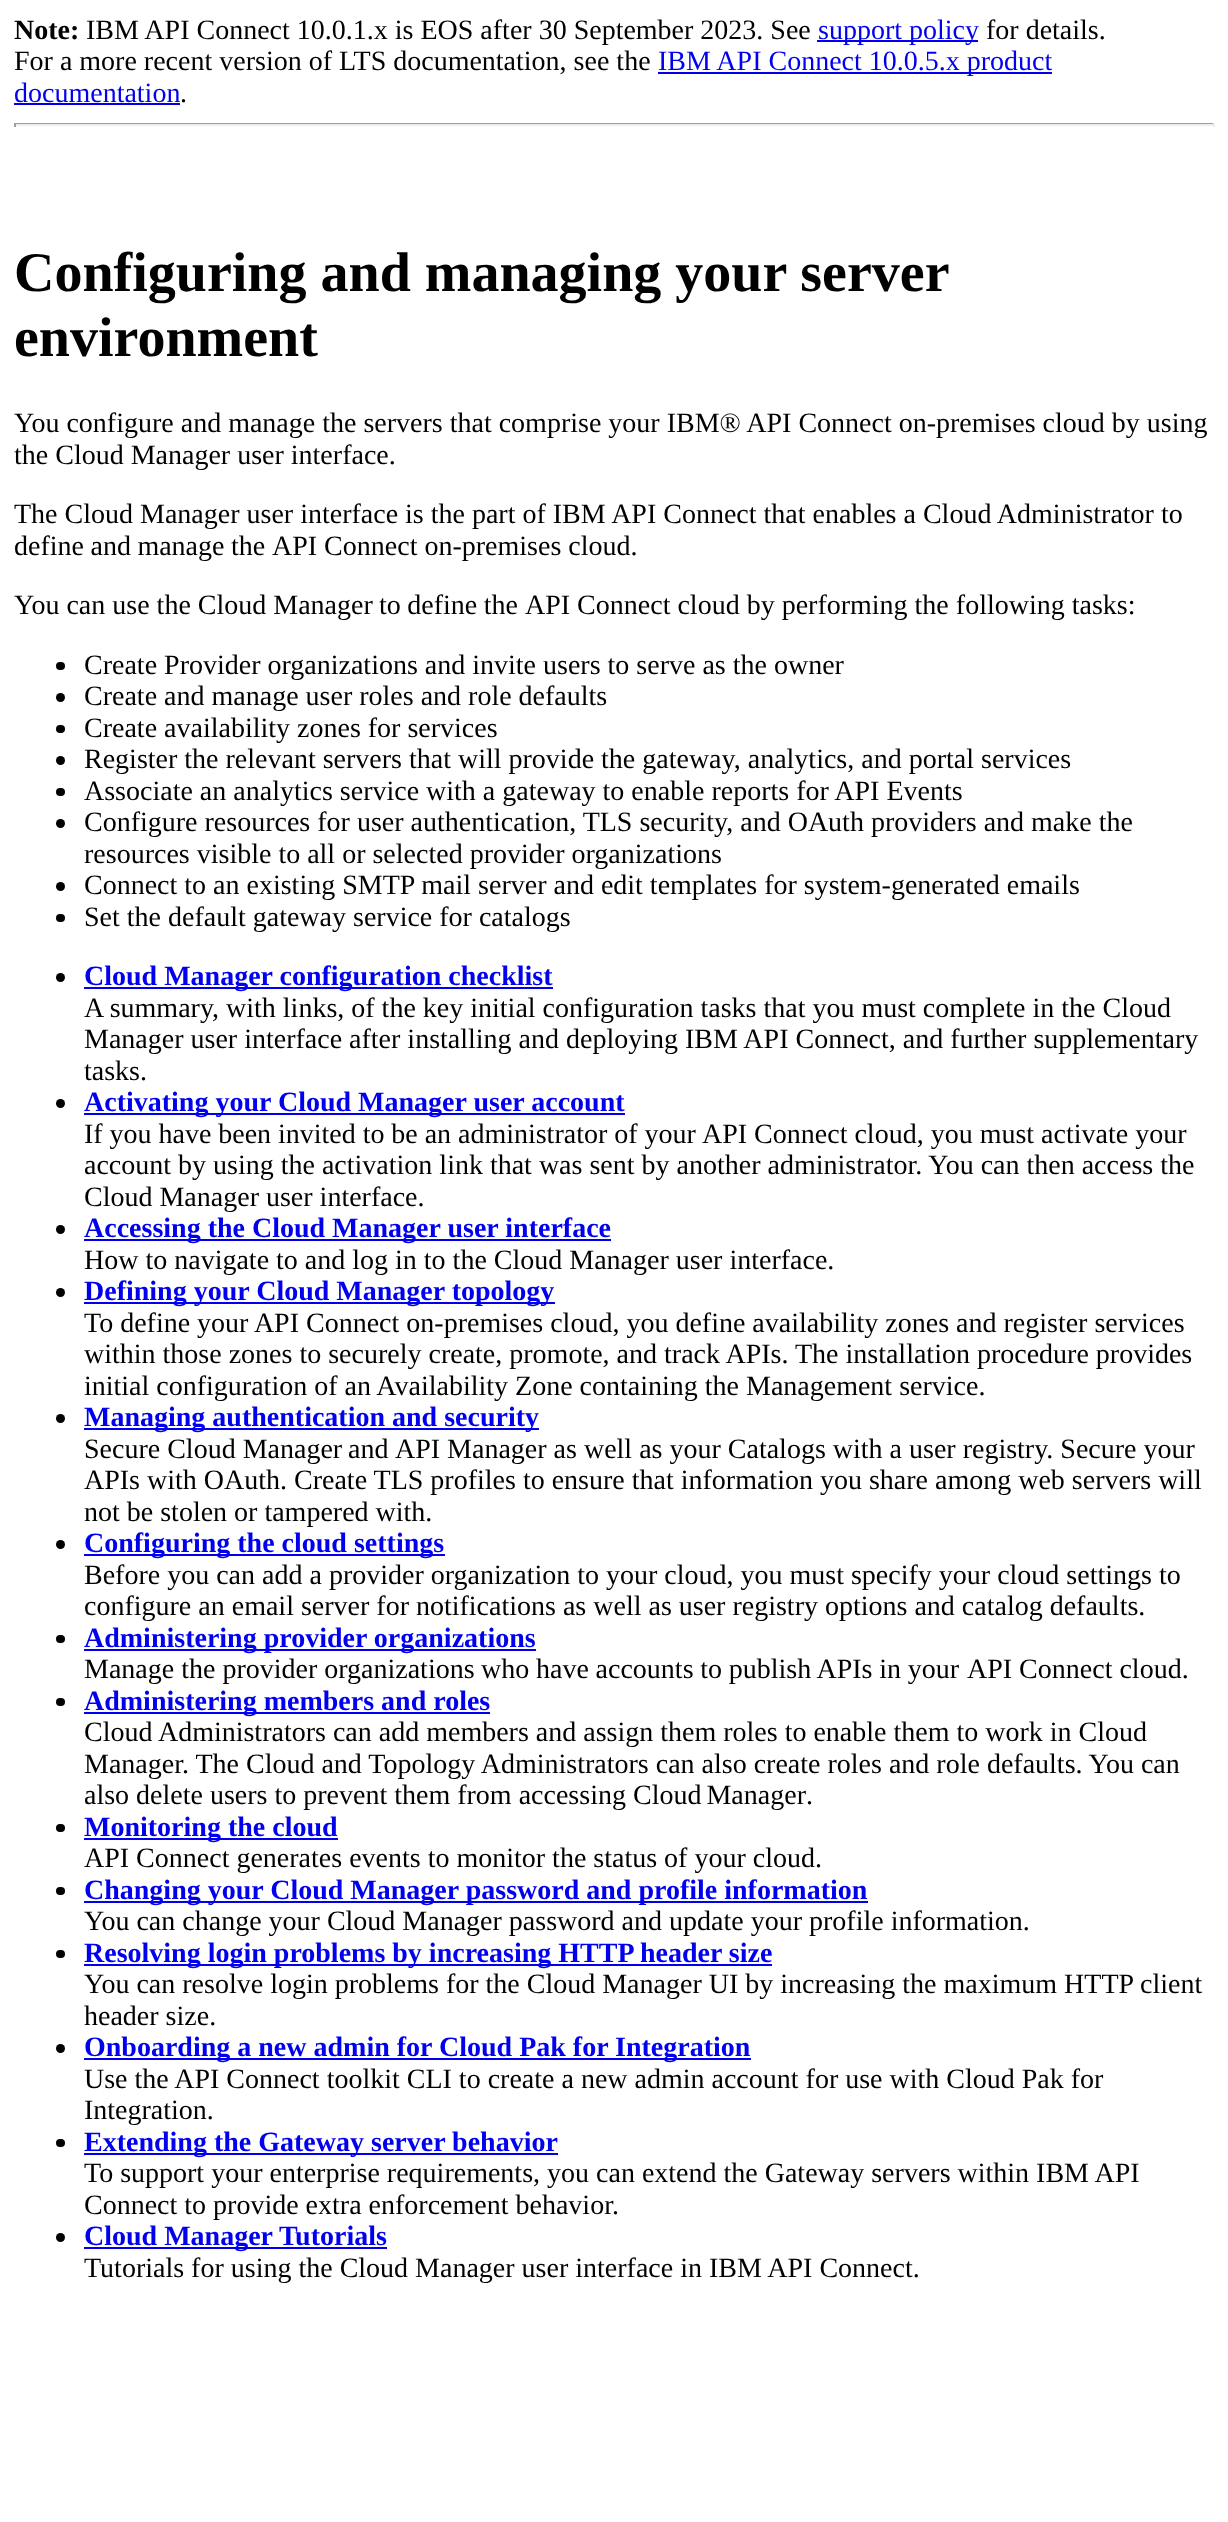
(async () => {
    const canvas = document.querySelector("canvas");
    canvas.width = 1228;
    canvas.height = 2522;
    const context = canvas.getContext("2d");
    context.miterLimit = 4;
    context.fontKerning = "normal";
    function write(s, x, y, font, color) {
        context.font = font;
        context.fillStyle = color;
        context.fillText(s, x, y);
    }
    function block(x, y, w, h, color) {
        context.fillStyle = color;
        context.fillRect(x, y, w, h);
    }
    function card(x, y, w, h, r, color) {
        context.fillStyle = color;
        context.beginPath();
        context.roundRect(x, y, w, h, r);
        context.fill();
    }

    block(0, 0, 1228, 2522, "rgb(255, 255, 255)");
    write("Note:", 14, 39, "bold 28px Liberation Serif", "rgb(0, 0, 0)");
    write("IBM API Connect 10.0.1.x is EOS after 30 September 2023. See", 86, 39, "28px Liberation Serif", "rgb(0, 0, 0)");
    block(817, 40, 161, 2, "rgb(0, 0, 238)");
    write("support policy", 818, 39, "28px Liberation Serif", "rgb(0, 0, 238)");
    write("for details.", 986, 39, "28px Liberation Serif", "rgb(0, 0, 0)");
    write("For a more recent version of LTS documentation, see the", 14, 70, "28px Liberation Serif", "rgb(0, 0, 0)");
    block(658, 72, 394, 2, "rgb(0, 0, 238)");
    write("IBM API Connect 10.0.5.x product", 658, 70, "28px Liberation Serif", "rgb(0, 0, 238)");
    write("documentation", 14, 102, "28px Liberation Serif", "rgb(0, 0, 238)");
    block(14, 103, 166, 2, "rgb(0, 0, 238)");
    write(".", 180, 102, "28px Liberation Serif", "rgb(0, 0, 0)");
    block(14, 123, 1201, 1, "rgb(159, 159, 159)");
    block(1213, 123, 2, 4, "rgb(238, 238, 238)");
    block(14, 124, 1201, 2, "rgb(238, 238, 238)");
    block(14, 123, 2, 4, "rgb(159, 159, 159)");
    write("Configuring and managing your server", 14, 291, "bold 56px Liberation Serif", "rgb(0, 0, 0)");
    write("environment", 14, 356, "bold 56px Liberation Serif", "rgb(0, 0, 0)");
    write("You configure and manage the servers that comprise your IBM® API Connect on-premises cloud by using", 14, 432, "28px Liberation Serif", "rgb(0, 0, 0)");
    write("the Cloud Manager user interface.", 14, 464, "28px Liberation Serif", "rgb(0, 0, 0)");
    write("The Cloud Manager user interface is the part of IBM API Connect that enables a Cloud Administrator to", 14, 523, "28px Liberation Serif", "rgb(0, 0, 0)");
    context.wordSpacing = "-0.5px";
    write("define and manage the", 14, 555, "28px Liberation Serif", "rgb(0, 0, 0)");
    context.wordSpacing = "0px";
    write("API Connect on-premises cloud.", 272, 555, "28px Liberation Serif", "rgb(0, 0, 0)");
    write("You can use the Cloud Manager", 14, 614, "28px Liberation Serif", "rgb(0, 0, 0)");
    context.wordSpacing = "-0.5px";
    write("to define the", 379, 614, "28px Liberation Serif", "rgb(0, 0, 0)");
    context.wordSpacing = "0px";
    write("API Connect cloud by performing the following tasks:", 525, 614, "28px Liberation Serif", "rgb(0, 0, 0)");
    card(56, 662, 9, 8, 4, "rgb(0, 0, 0)");
    write("Create Provider organizations and invite users to serve as the owner", 84, 674, "28px Liberation Serif", "rgb(0, 0, 0)");
    context.beginPath();
    context.arc(60.5, 697.5, 4.5, 0, Math.PI * 2);
    context.fill();
    write("Create and manage user roles and role defaults", 84, 705, "28px Liberation Serif", "rgb(0, 0, 0)");
    card(56, 725, 9, 8, 4, "rgb(0, 0, 0)");
    write("Create availability zones for services", 84, 737, "28px Liberation Serif", "rgb(0, 0, 0)");
    context.beginPath();
    context.arc(60.5, 760.5, 4.5, 0, Math.PI * 2);
    context.fill();
    write("Register the relevant servers that will provide the gateway, analytics, and portal services", 84, 768, "28px Liberation Serif", "rgb(0, 0, 0)");
    card(56, 788, 9, 8, 4, "rgb(0, 0, 0)");
    write("Associate an analytics service with a gateway to enable reports for API Events", 84, 800, "28px Liberation Serif", "rgb(0, 0, 0)");
    context.beginPath();
    context.arc(60.5, 823.5, 4.5, 0, Math.PI * 2);
    context.fill();
    write("Configure resources for user authentication, TLS security, and OAuth providers and make the", 84, 831, "28px Liberation Serif", "rgb(0, 0, 0)");
    write("resources visible to all or selected provider organizations", 84, 863, "28px Liberation Serif", "rgb(0, 0, 0)");
    context.beginPath();
    context.arc(60.5, 886.5, 4.5, 0, Math.PI * 2);
    context.fill();
    write("Connect to an existing SMTP mail server and edit templates for system-generated emails", 84, 894, "28px Liberation Serif", "rgb(0, 0, 0)");
    card(56, 914, 9, 8, 4, "rgb(0, 0, 0)");
    write("Set the default gateway service for catalogs", 84, 926, "28px Liberation Serif", "rgb(0, 0, 0)");
    context.beginPath();
    context.arc(60.5, 977.5, 4.5, 0, Math.PI * 2);
    context.fill();
    block(84, 987, 469, 2, "rgb(0, 0, 238)");
    write("Cloud Manager configuration checklist", 84, 985, "bold 28px Liberation Serif", "rgb(0, 0, 238)");
    write("A summary, with links, of the key initial configuration tasks that you must complete in the Cloud", 84, 1017, "28px Liberation Serif", "rgb(0, 0, 0)");
    write("Manager user interface after installing and deploying IBM API Connect, and further supplementary", 84, 1048, "28px Liberation Serif", "rgb(0, 0, 0)");
    write("tasks.", 84, 1080, "28px Liberation Serif", "rgb(0, 0, 0)");
    context.beginPath();
    context.arc(60.5, 1103.5, 4.5, 0, Math.PI * 2);
    context.fill();
    block(84, 1113, 541, 2, "rgb(0, 0, 238)");
    write("Activating your Cloud Manager user account", 84, 1111, "bold 28px Liberation Serif", "rgb(0, 0, 238)");
    context.wordSpacing = "-0.1px";
    write("If you have been invited to be an administrator of your", 84, 1143, "28px Liberation Serif", "rgb(0, 0, 0)");
    context.wordSpacing = "0px";
    write("API Connect cloud, you must activate your", 702, 1143, "28px Liberation Serif", "rgb(0, 0, 0)");
    write("account by using the activation link that was sent by another administrator. You can then access the", 84, 1174, "28px Liberation Serif", "rgb(0, 0, 0)");
    write("Cloud Manager user interface.", 84, 1206, "28px Liberation Serif", "rgb(0, 0, 0)");
    context.beginPath();
    context.arc(60.5, 1229.5, 4.5, 0, Math.PI * 2);
    context.fill();
    block(84, 1239, 527, 2, "rgb(0, 0, 238)");
    write("Accessing the Cloud Manager user interface", 84, 1237, "bold 28px Liberation Serif", "rgb(0, 0, 238)");
    write("How to navigate to and log in to the Cloud Manager user interface.", 84, 1269, "28px Liberation Serif", "rgb(0, 0, 0)");
    context.beginPath();
    context.arc(60.5, 1292.5, 4.5, 0, Math.PI * 2);
    context.fill();
    block(84, 1302, 471, 2, "rgb(0, 0, 238)");
    write("Defining your Cloud Manager topology", 84, 1300, "bold 28px Liberation Serif", "rgb(0, 0, 238)");
    write("To define your API Connect on-premises cloud, you define availability zones and register services", 84, 1332, "28px Liberation Serif", "rgb(0, 0, 0)");
    write("within those zones to securely create, promote, and track APIs. The installation procedure provides", 84, 1363, "28px Liberation Serif", "rgb(0, 0, 0)");
    write("initial configuration of an Availability Zone containing the Management service.", 84, 1395, "28px Liberation Serif", "rgb(0, 0, 0)");
    context.beginPath();
    context.arc(60.5, 1418.5, 4.5, 0, Math.PI * 2);
    context.fill();
    block(84, 1428, 455, 2, "rgb(0, 0, 238)");
    write("Managing authentication and security", 84, 1426, "bold 28px Liberation Serif", "rgb(0, 0, 238)");
    write("Secure Cloud Manager", 84, 1458, "28px Liberation Serif", "rgb(0, 0, 0)");
    write("and", 348, 1458, "28px Liberation Serif", "rgb(0, 0, 0)");
    write("API Manager as well as your Catalogs with a user registry. Secure your", 395, 1458, "28px Liberation Serif", "rgb(0, 0, 0)");
    write("APIs with OAuth. Create TLS profiles to ensure that information you share among web servers will", 84, 1489, "28px Liberation Serif", "rgb(0, 0, 0)");
    write("not be stolen or tampered with.", 84, 1521, "28px Liberation Serif", "rgb(0, 0, 0)");
    context.beginPath();
    context.arc(60.5, 1544.5, 4.5, 0, Math.PI * 2);
    context.fill();
    block(84, 1554, 361, 2, "rgb(0, 0, 238)");
    write("Configuring the cloud settings", 84, 1552, "bold 28px Liberation Serif", "rgb(0, 0, 238)");
    write("Before you can add a provider organization to your cloud, you must specify your cloud settings to", 84, 1584, "28px Liberation Serif", "rgb(0, 0, 0)");
    write("configure an email server for notifications as well as user registry options and catalog defaults.", 84, 1615, "28px Liberation Serif", "rgb(0, 0, 0)");
    card(56, 1635, 9, 8, 4, "rgb(0, 0, 0)");
    block(84, 1649, 452, 2, "rgb(0, 0, 238)");
    write("Administering provider organizations", 84, 1647, "bold 28px Liberation Serif", "rgb(0, 0, 238)");
    write("Manage the provider organizations", 84, 1678, "28px Liberation Serif", "rgb(0, 0, 0)");
    context.wordSpacing = "-0.25px";
    write("who have accounts to publish APIs in your", 481, 1678, "28px Liberation Serif", "rgb(0, 0, 0)");
    context.wordSpacing = "0px";
    write("API Connect cloud.", 967, 1678, "28px Liberation Serif", "rgb(0, 0, 0)");
    card(56, 1698, 9, 8, 4, "rgb(0, 0, 0)");
    block(84, 1712, 406, 2, "rgb(0, 0, 238)");
    write("Administering members and roles", 84, 1710, "bold 28px Liberation Serif", "rgb(0, 0, 238)");
    write("Cloud Administrators can add members and assign them roles to enable them to work in Cloud", 84, 1741, "28px Liberation Serif", "rgb(0, 0, 0)");
    write("Manager. The Cloud and Topology Administrators can also create roles and role defaults. You can", 84, 1773, "28px Liberation Serif", "rgb(0, 0, 0)");
    write("also delete users to prevent them from accessing", 84, 1804, "28px Liberation Serif", "rgb(0, 0, 0)");
    context.wordSpacing = "-2px";
    write("Cloud Manager", 633, 1804, "28px Liberation Serif", "rgb(0, 0, 0)");
    context.wordSpacing = "0px";
    write(".", 806, 1804, "28px Liberation Serif", "rgb(0, 0, 0)");
    card(56, 1824, 9, 8, 4, "rgb(0, 0, 0)");
    block(84, 1838, 254, 2, "rgb(0, 0, 238)");
    write("Monitoring the cloud", 84, 1836, "bold 28px Liberation Serif", "rgb(0, 0, 238)");
    write("API Connect generates events to monitor the status of your cloud.", 84, 1867, "28px Liberation Serif", "rgb(0, 0, 0)");
    card(56, 1887, 9, 8, 4, "rgb(0, 0, 0)");
    block(84, 1901, 784, 2, "rgb(0, 0, 238)");
    write("Changing your Cloud Manager password and profile information", 84, 1899, "bold 28px Liberation Serif", "rgb(0, 0, 238)");
    write("You can change your Cloud Manager password and update your profile information.", 84, 1930, "28px Liberation Serif", "rgb(0, 0, 0)");
    card(56, 1950, 9, 8, 4, "rgb(0, 0, 0)");
    block(84, 1964, 688, 2, "rgb(0, 0, 238)");
    write("Resolving login problems by increasing HTTP header size", 84, 1962, "bold 28px Liberation Serif", "rgb(0, 0, 238)");
    write("You can resolve login problems for the Cloud Manager UI by increasing the maximum HTTP client", 84, 1993, "28px Liberation Serif", "rgb(0, 0, 0)");
    write("header size.", 84, 2025, "28px Liberation Serif", "rgb(0, 0, 0)");
    context.beginPath();
    context.arc(60.5, 2048.5, 4.5, 0, Math.PI * 2);
    context.fill();
    block(84, 2058, 667, 2, "rgb(0, 0, 238)");
    write("Onboarding a new admin for Cloud Pak for Integration", 84, 2056, "bold 28px Liberation Serif", "rgb(0, 0, 238)");
    write("Use the API Connect toolkit CLI to create a new admin account for use with Cloud Pak for", 84, 2088, "28px Liberation Serif", "rgb(0, 0, 0)");
    write("Integration.", 84, 2119, "28px Liberation Serif", "rgb(0, 0, 0)");
    card(56, 2139, 9, 8, 4, "rgb(0, 0, 0)");
    block(84, 2153, 474, 2, "rgb(0, 0, 238)");
    write("Extending the Gateway server behavior", 84, 2151, "bold 28px Liberation Serif", "rgb(0, 0, 238)");
    write("To support your enterprise requirements, you can extend the Gateway servers within IBM API", 84, 2182, "28px Liberation Serif", "rgb(0, 0, 0)");
    write("Connect to provide extra enforcement behavior.", 84, 2214, "28px Liberation Serif", "rgb(0, 0, 0)");
    context.beginPath();
    context.arc(60.5, 2237.5, 4.5, 0, Math.PI * 2);
    context.fill();
    block(84, 2247, 303, 2, "rgb(0, 0, 238)");
    write("Cloud Manager Tutorials", 84, 2245, "bold 28px Liberation Serif", "rgb(0, 0, 238)");
    write("Tutorials for using the Cloud Manager user interface in IBM API Connect.", 84, 2277, "28px Liberation Serif", "rgb(0, 0, 0)");
})();
